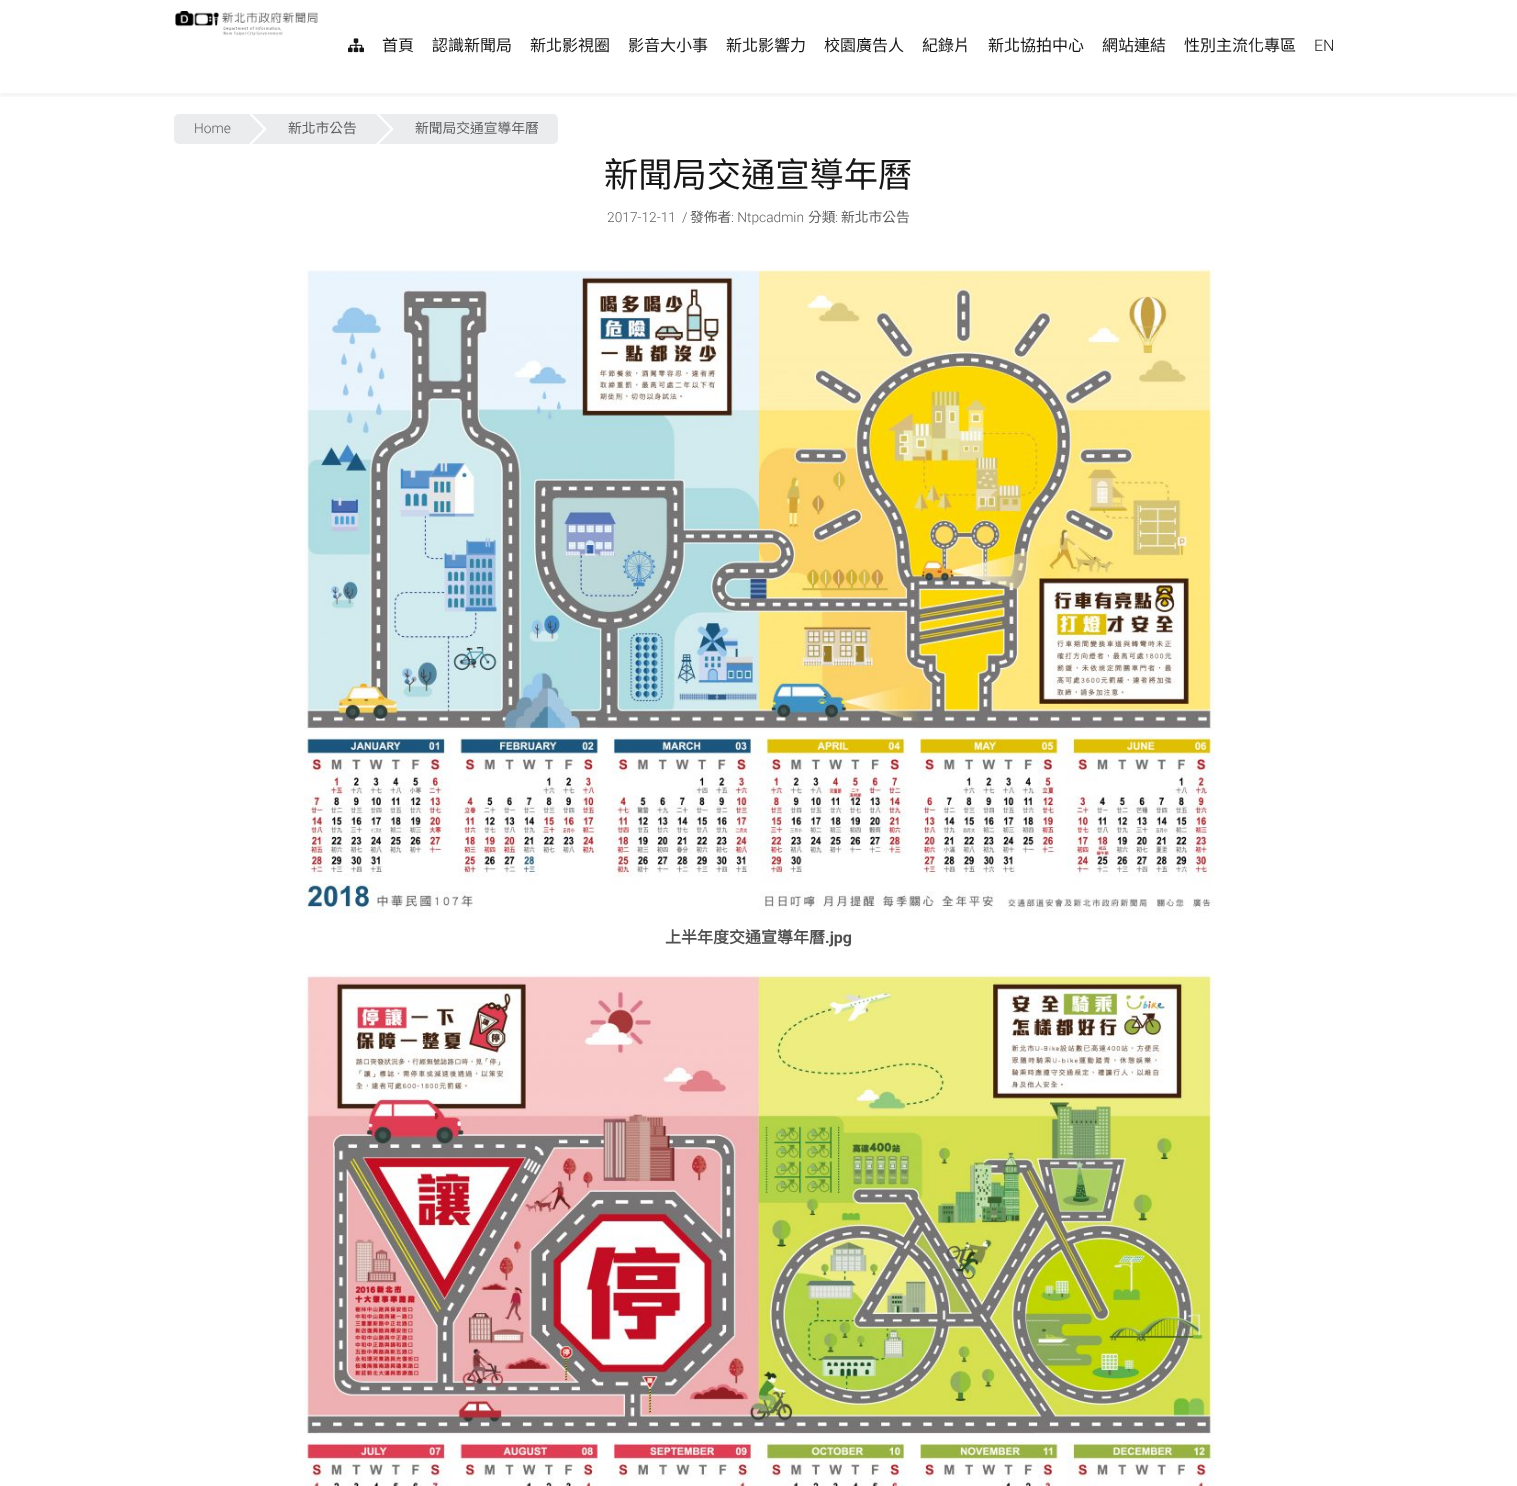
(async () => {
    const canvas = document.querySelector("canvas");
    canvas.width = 1517;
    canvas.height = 1486;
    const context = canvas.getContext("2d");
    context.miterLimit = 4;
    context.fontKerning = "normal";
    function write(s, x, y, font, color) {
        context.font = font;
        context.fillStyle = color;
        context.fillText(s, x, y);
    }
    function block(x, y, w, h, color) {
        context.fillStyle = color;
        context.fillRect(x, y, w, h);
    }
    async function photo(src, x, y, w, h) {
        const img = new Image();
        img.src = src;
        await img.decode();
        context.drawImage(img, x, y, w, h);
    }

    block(0, 0, 1517, 1486, "rgb(255, 255, 255)");
    await photo("media/1.png", 175, 11, 143, 25);
    await photo("media/2.png", 348, 38, 16, 15);
    write("首頁", 382, 51, "16px Noto Sans CJK TC", "rgb(22, 22, 22)");
    write("認識新聞局", 432, 51, "16px Noto Sans CJK TC", "rgb(22, 22, 22)");
    write("新北影視圈", 530, 51, "16px Noto Sans CJK TC", "rgb(22, 22, 22)");
    write("影音大小事", 628, 51, "16px Noto Sans CJK TC", "rgb(22, 22, 22)");
    write("新北影響力", 726, 51, "16px Noto Sans CJK TC", "rgb(22, 22, 22)");
    write("校園廣告人", 824, 51, "16px Noto Sans CJK TC", "rgb(22, 22, 22)");
    write("紀錄片", 922, 51, "16px Noto Sans CJK TC", "rgb(22, 22, 22)");
    write("新北協拍中心", 988, 51, "16px Noto Sans CJK TC", "rgb(22, 22, 22)");
    write("網站連結", 1102, 51, "16px Noto Sans CJK TC", "rgb(22, 22, 22)");
    write("性別主流化專區", 1184, 51, "16px Noto Sans CJK TC", "rgb(22, 22, 22)");
    write("EN", 1314, 51, "300 16px Roboto", "rgb(22, 22, 22)");
    context.save();
    context.beginPath();
    context.rect(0, 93, 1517, 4);
    context.clip();
    context.fillStyle = "rgba(0, 0, 0, 0.04)";
    context.filter = "blur(1.5px)";
    context.beginPath();
    context.rect(0, 89, 1517, 8);
    context.fill();
    context.filter = "none";
    context.restore();
    context.fillStyle = "rgb(235, 236, 238)";
    context.beginPath();
    context.roundRect(174, 114, 94, 30, [5, 0, 0, 5]);
    context.fill();
    write("Home", 194, 133, "300 13.75px Roboto", "rgb(97, 97, 97)");
    await photo("media/3.png", 249, 114, 18, 30);
    block(268, 114, 127, 30, "rgb(235, 236, 238)");
    write("新北市公告", 288, 133, "13.75px Noto Sans CJK TC", "rgb(97, 97, 97)");
    await photo("media/3.png", 376, 114, 18, 30);
    context.fillStyle = "rgb(235, 236, 238)";
    context.beginPath();
    context.roundRect(395, 114, 163, 30, [0, 5, 5, 0]);
    context.fill();
    write("新聞局交通宣導年曆", 415, 133, "13.75px Noto Sans CJK TC", "rgb(97, 97, 97)");
    write("新聞局交通宣導年曆", 604, 187, "34.25px Noto Sans CJK TC", "rgb(22, 22, 22)");
    write("2017-12-11", 607, 222, "300 13.75px Roboto", "rgb(97, 97, 97)");
    write("/", 682, 222, "300 13.75px Roboto", "rgb(97, 97, 97)");
    write("發佈者", 690, 222, "13.75px Noto Sans CJK TC", "rgb(97, 97, 97)");
    write(": Ntpcadmin", 731, 222, "300 13.75px Roboto", "rgb(97, 97, 97)");
    write("分類", 808, 222, "13.75px Noto Sans CJK TC", "rgb(97, 97, 97)");
    write(":", 835, 222, "300 13.75px Roboto", "rgb(97, 97, 97)");
    write("新北市公告", 841, 222, "13.75px Noto Sans CJK TC", "rgb(97, 97, 97)");
    await photo("media/4.png", 303, 268, 912, 646);
    write("上半年度交通宣導年曆", 665, 943, "bold 16px Noto Sans CJK TC", "rgb(80, 80, 80)");
    write(".jpg", 825, 943, "bold 16px Roboto", "rgb(80, 80, 80)");
    await photo("media/5.png", 303, 973, 912, 513);
})();
